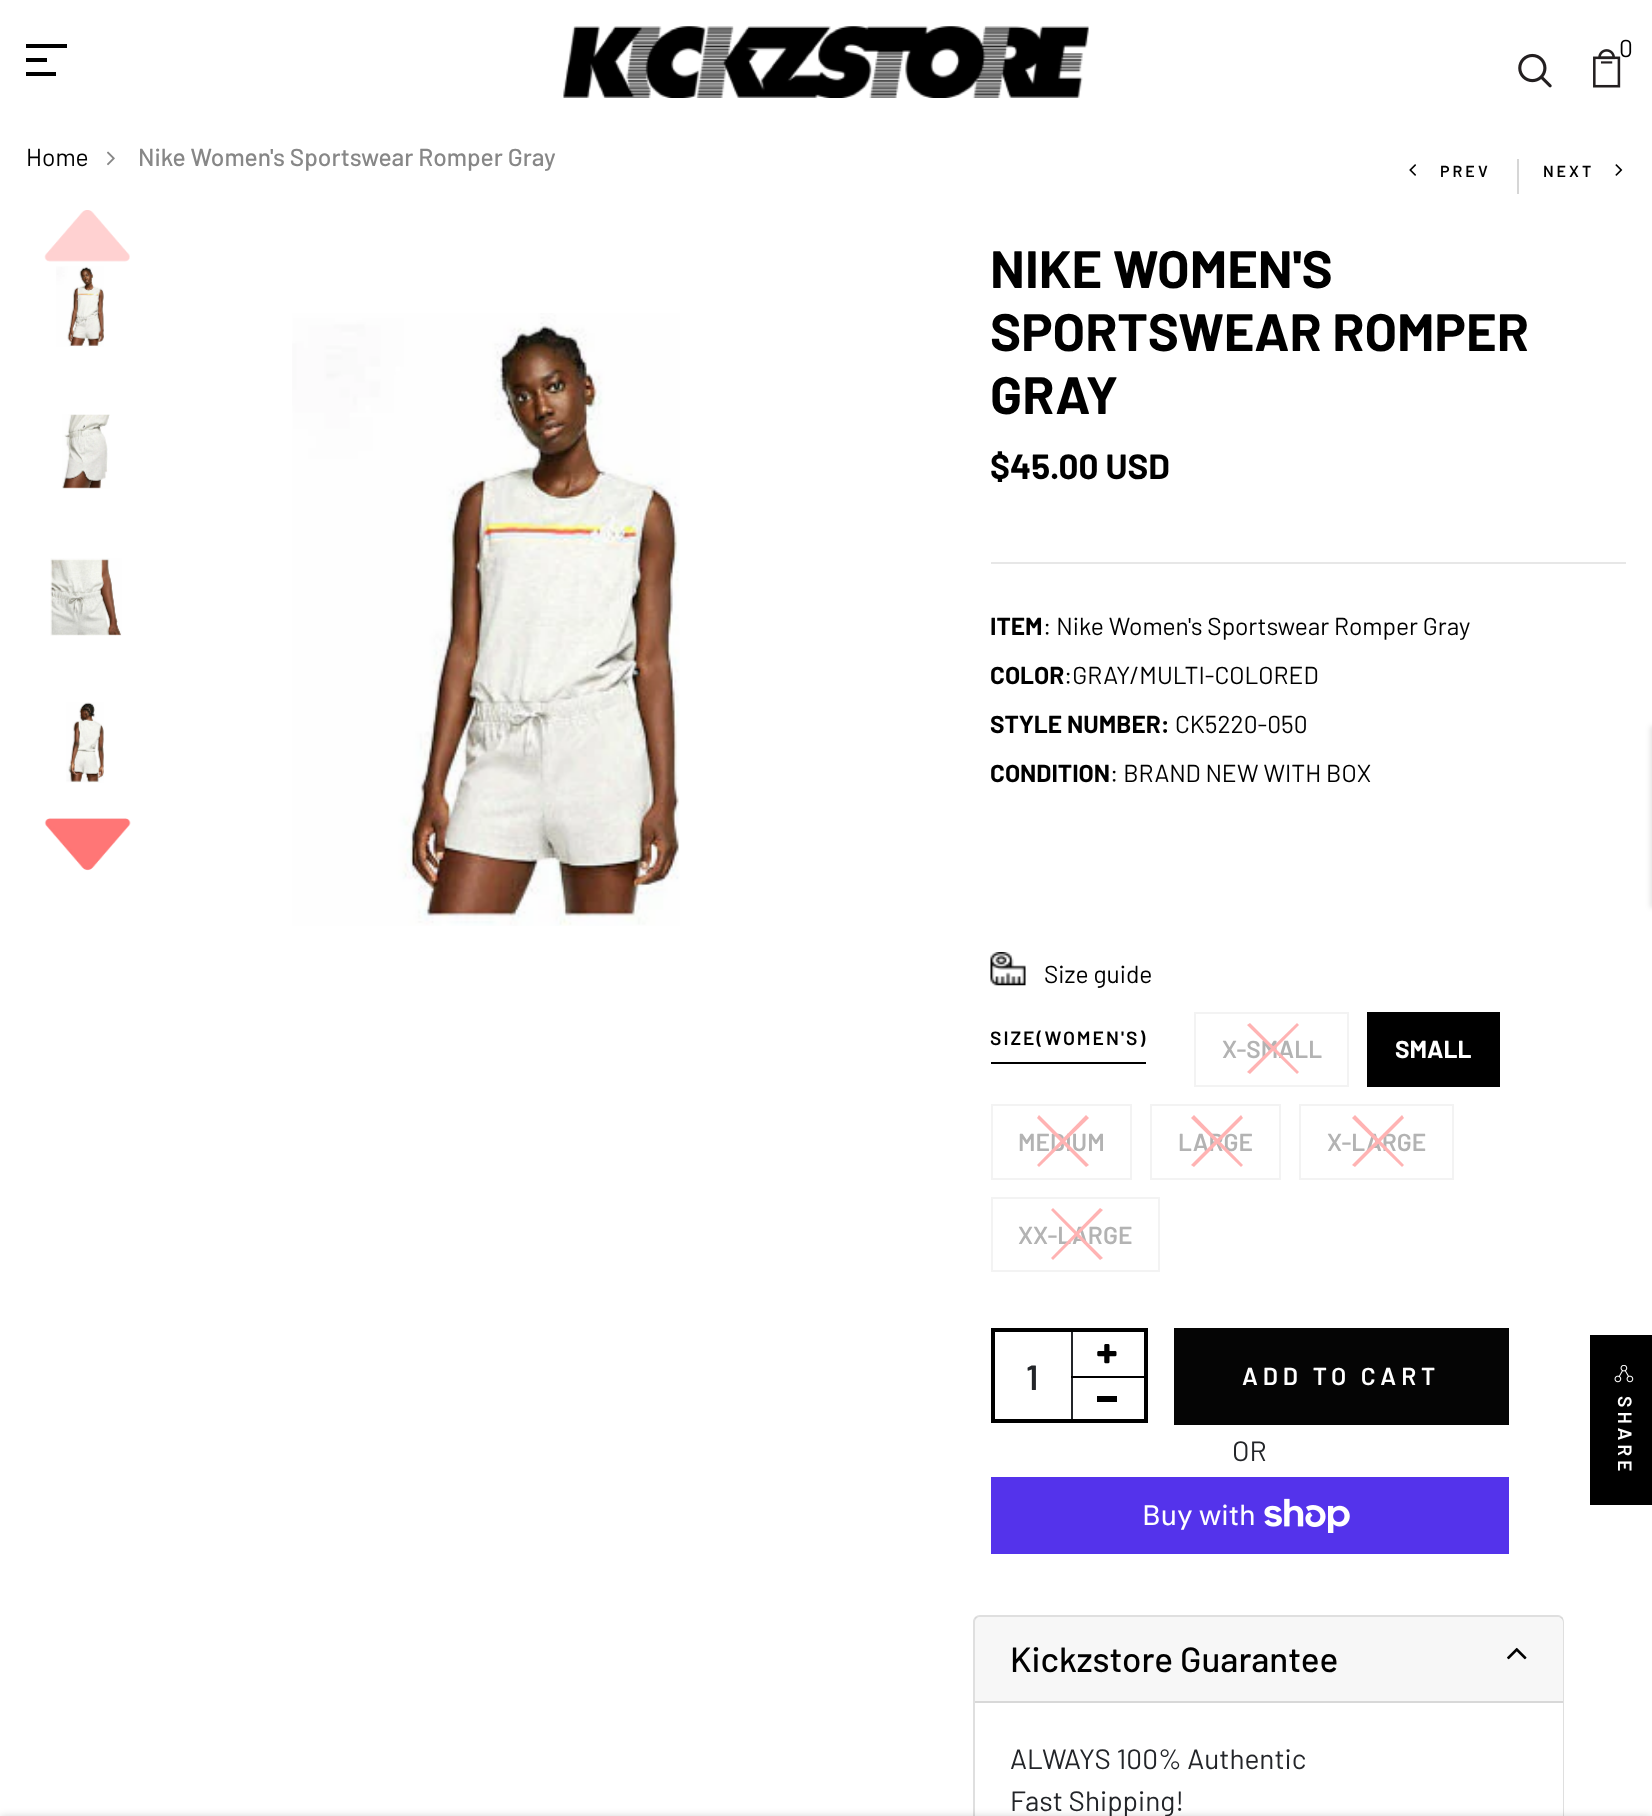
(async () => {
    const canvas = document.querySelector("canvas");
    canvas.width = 1652;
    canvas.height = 1816;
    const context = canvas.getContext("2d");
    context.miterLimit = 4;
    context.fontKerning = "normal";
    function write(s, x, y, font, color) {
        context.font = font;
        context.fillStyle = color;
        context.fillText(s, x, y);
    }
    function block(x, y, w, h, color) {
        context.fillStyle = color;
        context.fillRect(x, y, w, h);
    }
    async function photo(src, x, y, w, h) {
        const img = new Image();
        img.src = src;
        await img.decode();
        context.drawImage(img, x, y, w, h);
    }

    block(0, 0, 1652, 1816, "rgb(255, 255, 255)");
    block(26, 44, 41, 4, "rgb(0, 0, 0)");
    block(26, 58, 21, 4, "rgb(0, 0, 0)");
    block(26, 72, 30, 4, "rgb(0, 0, 0)");
    await photo("media/1.png", 563, 26, 526, 72);
    await photo("media/2.png", 1593, 49, 28, 39);
    write("0", 1619, 57, "24.5px Barlow", "rgb(0, 0, 0)");
    await photo("media/3.png", 1518, 53, 34, 35);
    write("Home", 26, 166, "24.5px Barlow", "rgb(0, 0, 0)");
    await photo("media/4.png", 107, 151, 8, 15);
    write("Nike Women's Sportswear Romper Gray", 138, 166, "500 24.5px Barlow", "rgb(135, 135, 135)");
    await photo("media/5.png", 1409, 164, 7, 12);
    context.letterSpacing = "3px";
    write("PREV", 1440, 177, "600 16px Barlow", "rgb(0, 0, 0)");
    block(1517, 159, 2, 35, "rgb(214, 214, 214)");
    write("NEXT", 1543, 177, "600 16px Barlow", "rgb(0, 0, 0)");
    await photo("media/6.png", 1615, 164, 8, 12);
    await photo("media/7.png", 44, 210, 86, 52);
    await photo("media/8.png", 56, 266, 48, 81);
    await photo("media/9.png", 62, 414, 48, 75);
    await photo("media/10.png", 50, 558, 72, 78);
    await photo("media/11.png", 66, 702, 38, 81);
    await photo("media/12.png", 44, 818, 87, 53);
    await photo("media/13.png", 292, 313, 388, 613);
    context.letterSpacing = "0px";
    write("NIKE WOMEN'S", 990, 288, "bold 52.5px Barlow", "rgb(0, 0, 0)");
    write("SPORTSWEAR ROMPER", 990, 351, "bold 52.5px Barlow", "rgb(0, 0, 0)");
    write("GRAY", 990, 414, "bold 52.5px Barlow", "rgb(0, 0, 0)");
    write("$45.00 USD", 990, 479, "bold 35px Barlow", "rgb(0, 0, 0)");
    block(991, 562, 635, 2, "rgb(231, 231, 231)");
    write("ITEM", 990, 635, "bold 24.5px Barlow", "rgb(0, 0, 0)");
    write(": Nike Women's Sportswear Romper Gray", 1043, 635, "24.5px Barlow", "rgb(0, 0, 0)");
    write("COLOR", 990, 684, "bold 24.5px Barlow", "rgb(0, 0, 0)");
    write(":GRAY/MULTI-COLORED", 1064, 684, "24.5px Barlow", "rgb(0, 0, 0)");
    write("STYLE NUMBER:", 990, 733, "bold 24.5px Barlow", "rgb(0, 0, 0)");
    write("CK5220-050", 1175, 733, "24.5px Barlow", "rgb(0, 0, 0)");
    write("CONDITION", 990, 782, "bold 24.5px Barlow", "rgb(0, 0, 0)");
    write(": BRAND NEW WITH BOX", 1110, 782, "24.5px Barlow", "rgb(0, 0, 0)");
    await photo("media/14.png", 990, 952, 36, 34);
    write("Size guide", 1044, 983, "24.5px Barlow", "rgb(0, 0, 0)");
    block(991, 1062, 155, 2, "rgb(0, 0, 0)");
    context.letterSpacing = "2px";
    write("SIZE(WOMEN'S)", 990, 1045, "600 19.25px Barlow", "rgb(0, 0, 0)");
    context.strokeStyle = "rgb(243, 243, 243)";
    context.lineWidth = 2;
    context.strokeRect(1195, 1013, 153, 73);
    context.letterSpacing = "0px";
    write("X-SMALL", 1222, 1058, "600 24.5px Barlow", "rgb(179, 179, 179)");
    context.fillStyle = "rgb(255, 179, 179)";
    context.beginPath();
    context.moveTo(1247, 1072);
    context.lineTo(1297, 1023);
    context.lineTo(1299, 1025);
    context.lineTo(1250, 1074);
    context.closePath();
    context.fill();
    context.beginPath();
    context.moveTo(1250, 1023);
    context.lineTo(1299, 1072);
    context.lineTo(1297, 1074);
    context.lineTo(1247, 1025);
    context.closePath();
    context.fill();
    block(1367, 1012, 133, 75, "rgb(0, 0, 0)");
    write("SMALL", 1395, 1058, "bold 24.5px Barlow", "rgb(255, 255, 255)");
    context.strokeRect(992, 1105, 139, 74);
    write("MEDIUM", 1018, 1151, "600 24.5px Barlow", "rgb(179, 179, 179)");
    context.fillStyle = "rgb(255, 179, 179)";
    context.beginPath();
    context.moveTo(1037, 1165);
    context.lineTo(1086, 1115);
    context.lineTo(1089, 1118);
    context.lineTo(1039, 1167);
    context.closePath();
    context.fill();
    context.beginPath();
    context.moveTo(1039, 1115);
    context.lineTo(1089, 1165);
    context.lineTo(1086, 1167);
    context.lineTo(1037, 1118);
    context.closePath();
    context.fill();
    context.strokeRect(1151, 1105, 129, 74);
    write("LARGE", 1178, 1151, "600 24.5px Barlow", "rgb(179, 179, 179)");
    context.fillStyle = "rgb(255, 179, 179)";
    context.beginPath();
    context.moveTo(1191, 1165);
    context.lineTo(1241, 1115);
    context.lineTo(1243, 1118);
    context.lineTo(1194, 1167);
    context.closePath();
    context.fill();
    context.beginPath();
    context.moveTo(1194, 1115);
    context.lineTo(1243, 1165);
    context.lineTo(1241, 1167);
    context.lineTo(1191, 1118);
    context.closePath();
    context.fill();
    context.strokeRect(1300, 1105, 153, 74);
    write("X-LARGE", 1327, 1151, "600 24.5px Barlow", "rgb(179, 179, 179)");
    context.fillStyle = "rgb(255, 179, 179)";
    context.beginPath();
    context.moveTo(1352, 1165);
    context.lineTo(1402, 1115);
    context.lineTo(1404, 1118);
    context.lineTo(1355, 1167);
    context.closePath();
    context.fill();
    context.beginPath();
    context.moveTo(1355, 1115);
    context.lineTo(1404, 1165);
    context.lineTo(1402, 1167);
    context.lineTo(1352, 1118);
    context.closePath();
    context.fill();
    context.strokeRect(992, 1198, 167, 73);
    write("XX-LARGE", 1018, 1244, "600 24.5px Barlow", "rgb(179, 179, 179)");
    context.fillStyle = "rgb(255, 179, 179)";
    context.beginPath();
    context.moveTo(1051, 1258);
    context.lineTo(1100, 1208);
    context.lineTo(1103, 1210);
    context.lineTo(1053, 1260);
    context.closePath();
    context.fill();
    context.beginPath();
    context.moveTo(1053, 1208);
    context.lineTo(1103, 1258);
    context.lineTo(1100, 1260);
    context.lineTo(1051, 1210);
    context.closePath();
    context.fill();
    context.strokeStyle = "rgb(0, 0, 0)";
    context.lineWidth = 4;
    context.strokeRect(993, 1330, 153, 91);
    await photo("media/15.png", 1097, 1344, 20, 20);
    block(1071, 1332, 2, 87, "rgb(35, 37, 41)");
    write("1", 1026, 1390, "600 35px Barlow", "rgb(35, 37, 41)");
    block(1071, 1376, 74, 2, "rgb(0, 0, 0)");
    block(1097, 1396, 20, 6, "rgb(0, 0, 0)");
    block(1174, 1328, 335, 97, "rgb(5, 5, 5)");
    context.letterSpacing = "4.9px";
    write("ADD TO CART", 1242, 1385, "600 24.5px Barlow", "rgb(255, 255, 255)");
    context.letterSpacing = "0px";
    write("OR", 1232, 1461, "28px Barlow", "rgb(35, 37, 41)");
    block(991, 1477, 518, 77, "rgb(84, 51, 235)");
    write("Buy with", 1142, 1525, "28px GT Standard", "rgb(255, 255, 255)");
    await photo("media/16.png", 1264, 1498, 86, 35);
    context.fillStyle = "rgb(223, 223, 223)";
    context.beginPath();
    context.moveTo(980, 1615);
    context.lineTo(1558, 1615);
    context.bezierCurveTo(1561, 1615, 1564, 1618, 1564, 1622);
    context.lineTo(1564, 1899);
    context.lineTo(973, 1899);
    context.lineTo(973, 1622);
    context.bezierCurveTo(973, 1618, 976, 1615, 980, 1615);
    context.closePath();
    context.moveTo(980, 1617);
    context.lineTo(1558, 1617);
    context.bezierCurveTo(1560, 1617, 1563, 1619, 1563, 1622);
    context.lineTo(1563, 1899);
    context.lineTo(975, 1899);
    context.lineTo(975, 1622);
    context.bezierCurveTo(975, 1619, 977, 1617, 980, 1617);
    context.closePath();
    context.fill("evenodd");
    block(975, 1617, 588, 84, "rgba(0, 0, 0, 0.03)");
    block(975, 1701, 588, 2, "rgb(216, 216, 216)");
    write("Kickzstore Guarantee", 1010, 1672, "500 35px Barlow", "rgb(0, 0, 0)");
    await photo("media/17.png", 1507, 1647, 20, 13);
    write("ALWAYS 100% Authentic", 1010, 1769, "28px Barlow", "rgb(35, 37, 41)");
    write("Fast Shipping!", 1010, 1811, "28px Barlow", "rgb(35, 37, 41)");
    context.fillStyle = "rgba(0, 0, 0, 0.2)";
    context.filter = "blur(4.5px)";
    context.beginPath();
    context.rect(0, 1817, 1652, 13);
    context.fill();
    context.filter = "none";
    block(1590, 1335, 62, 170, "rgb(0, 0, 0)");
    await photo("media/18.png", 1614, 1365, 20, 18);
    context.letterSpacing = "4px";
    context.font = "600 19.25px Barlow";
    context.fillStyle = "rgb(255, 255, 255)";
    context.save();
    context.translate(1618, 1396);
    context.rotate(90 * Math.PI / 180);
    context.fillText("SHARE", 0, 0);
    context.restore();
    context.fillStyle = "rgba(0, 0, 0, 0.1)";
    context.filter = "blur(2.5px)";
    context.beginPath();
    context.rect(1650, 726, 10, 182);
    context.fill();
    context.filter = "none";
})();
